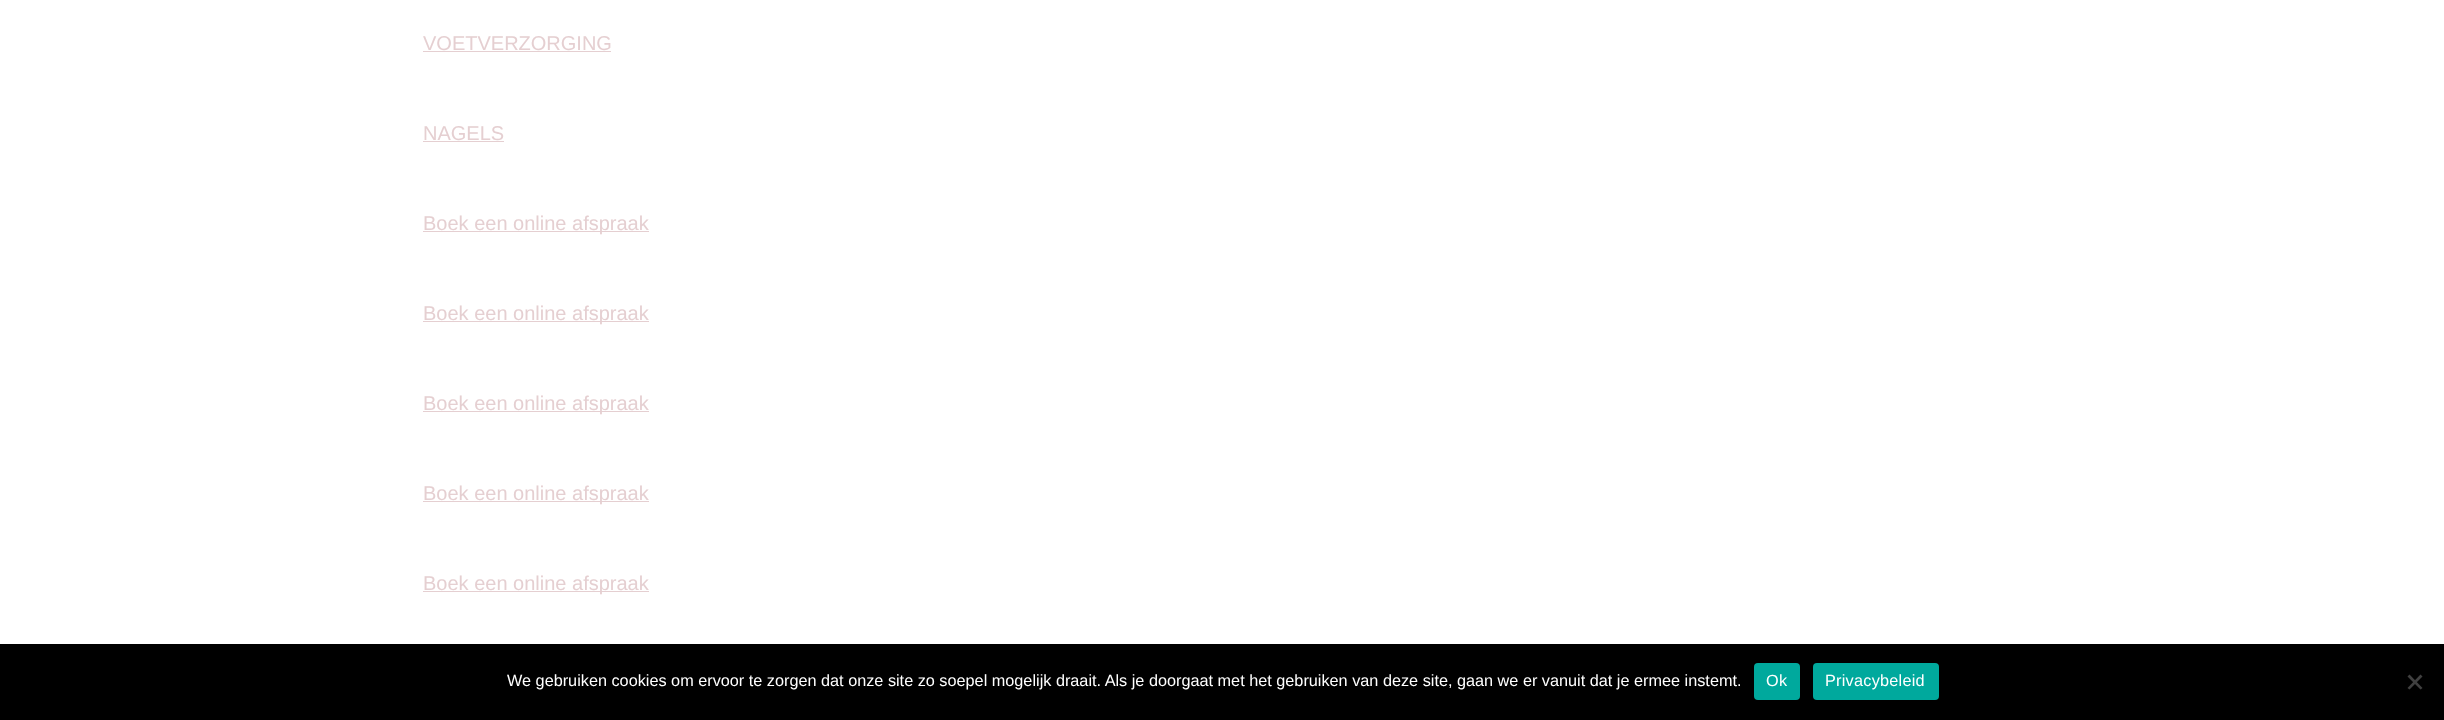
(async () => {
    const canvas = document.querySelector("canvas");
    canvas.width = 2444;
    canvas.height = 720;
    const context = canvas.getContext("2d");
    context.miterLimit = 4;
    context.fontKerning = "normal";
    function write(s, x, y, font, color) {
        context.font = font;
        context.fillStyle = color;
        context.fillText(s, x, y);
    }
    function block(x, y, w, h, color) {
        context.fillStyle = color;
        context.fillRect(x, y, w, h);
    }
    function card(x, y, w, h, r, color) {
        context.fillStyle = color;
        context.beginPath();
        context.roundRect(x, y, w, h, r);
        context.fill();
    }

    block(0, 0, 2444, 720, "rgb(255, 255, 255)");
    write("VOETVERZORGING", 423, 50, "20px Liberation Sans", "rgb(229, 207, 209)");
    block(423, 51, 188, 1, "rgb(229, 207, 209)");
    write("NAGELS", 423, 140, "20px Liberation Sans", "rgb(229, 207, 209)");
    block(423, 141, 81, 1, "rgb(229, 207, 209)");
    block(423, 231, 226, 1, "rgb(229, 207, 209)");
    write("Boek een online afspraak", 423, 230, "20px Liberation Sans", "rgb(229, 207, 209)");
    block(423, 321, 226, 1, "rgb(229, 207, 209)");
    write("Boek een online afspraak", 423, 320, "20px Liberation Sans", "rgb(229, 207, 209)");
    block(423, 411, 226, 1, "rgb(229, 207, 209)");
    write("Boek een online afspraak", 423, 410, "20px Liberation Sans", "rgb(229, 207, 209)");
    block(423, 501, 226, 1, "rgb(229, 207, 209)");
    write("Boek een online afspraak", 423, 500, "20px Liberation Sans", "rgb(229, 207, 209)");
    block(423, 591, 226, 1, "rgb(229, 207, 209)");
    write("Boek een online afspraak", 423, 590, "20px Liberation Sans", "rgb(229, 207, 209)");
    block(0, 644, 2444, 76, "rgb(0, 0, 0)");
    write("We gebruiken cookies om ervoor te zorgen dat onze site zo soepel mogelijk draait. Als je doorgaat met het gebruiken van deze site, gaan we er vanuit dat je ermee instemt.", 507, 686, "16.25px Liberation Sans", "rgb(255, 255, 255)");
    card(1754, 663, 46, 37, 4, "rgb(0, 169, 157)");
    context.letterSpacing = "0.25px";
    write("Ok", 1766, 686, "16.25px Liberation Sans", "rgb(255, 255, 255)");
    card(1813, 663, 126, 37, 4, "rgb(0, 169, 157)");
    write("Privacybeleid", 1825, 686, "16.25px Liberation Sans", "rgb(255, 255, 255)");
    context.fillStyle = "rgb(64, 64, 64)";
    context.beginPath();
    context.moveTo(2420.5, 674.5);
    context.lineTo(2422.5, 676.5);
    context.lineTo(2409.5, 689.5);
    context.lineTo(2407.5, 688);
    context.closePath();
    context.fill();
    context.beginPath();
    context.moveTo(2407.5, 676.5);
    context.lineTo(2409.5, 674.5);
    context.lineTo(2422.5, 688);
    context.lineTo(2420.5, 689.5);
    context.closePath();
    context.fill();
})();
